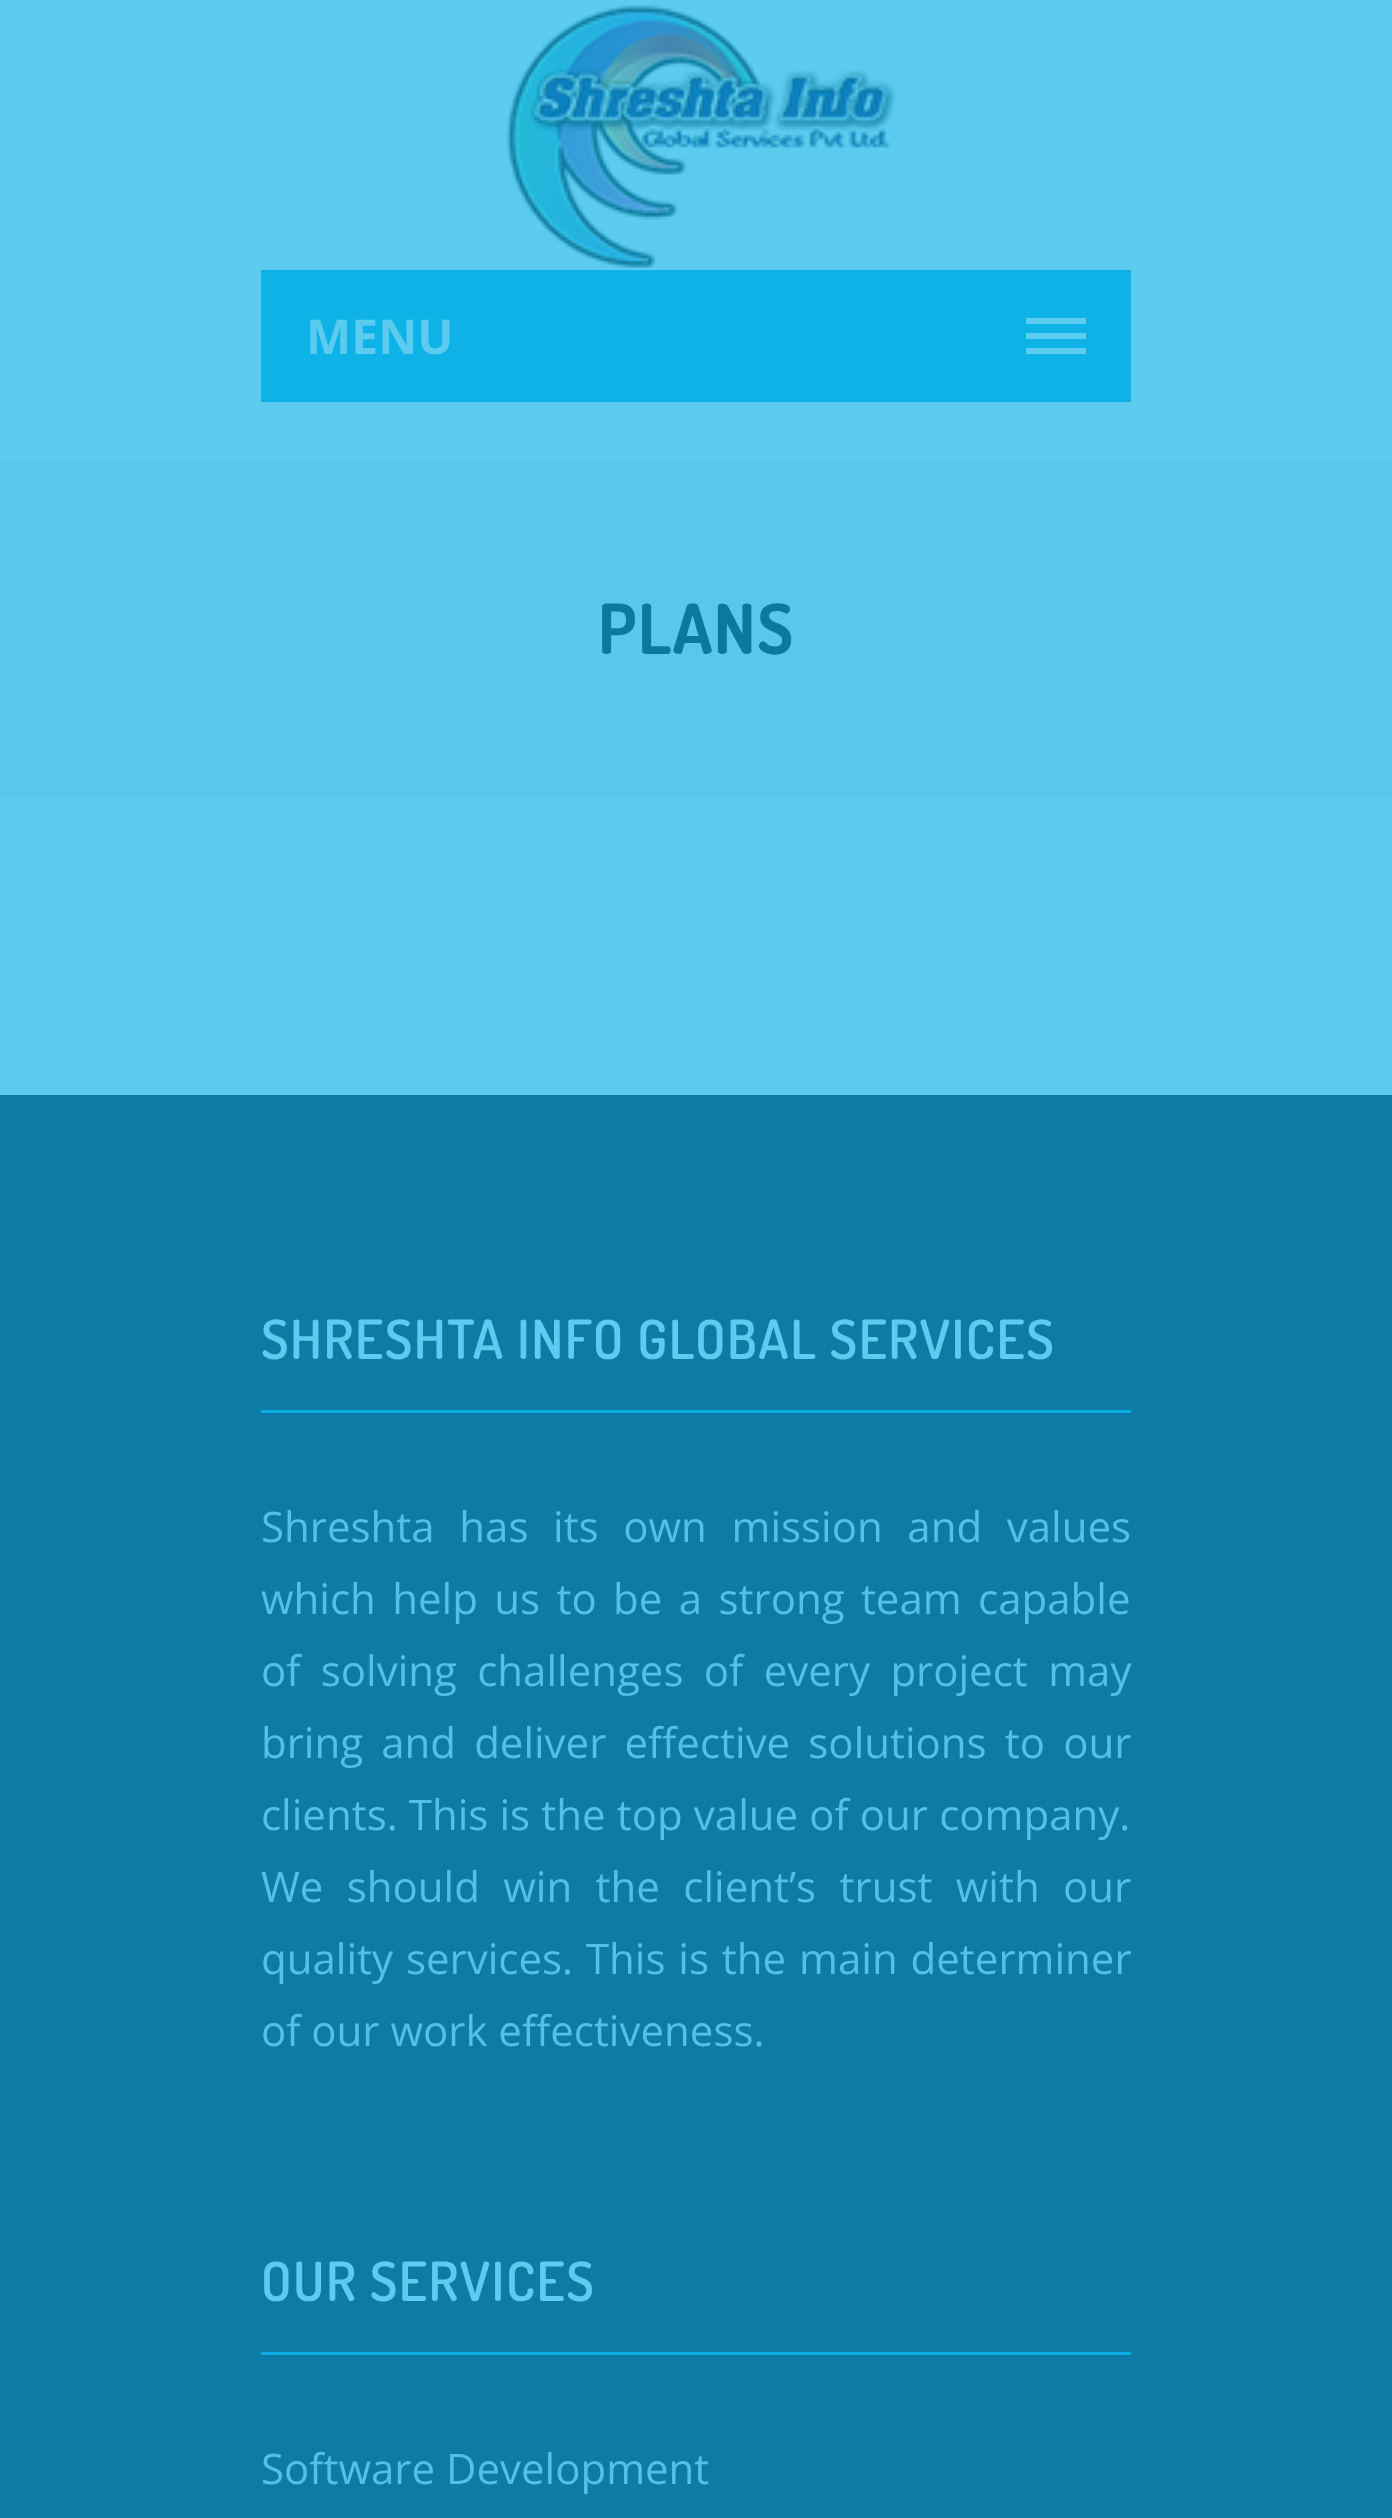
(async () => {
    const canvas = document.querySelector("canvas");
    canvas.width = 1392;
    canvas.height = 2518;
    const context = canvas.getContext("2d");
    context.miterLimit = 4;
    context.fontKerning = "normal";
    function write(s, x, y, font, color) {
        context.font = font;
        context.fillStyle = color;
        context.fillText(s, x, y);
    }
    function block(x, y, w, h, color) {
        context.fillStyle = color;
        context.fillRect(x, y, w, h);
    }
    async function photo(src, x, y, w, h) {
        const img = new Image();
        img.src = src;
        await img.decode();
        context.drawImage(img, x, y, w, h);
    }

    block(0, 0, 1392, 2518, "rgb(91, 203, 239)");
    await photo("media/1.png", 506, 5, 391, 263);
    block(261, 270, 870, 132, "rgb(14, 178, 231)");
    write("MENU", 306, 354, "bold 48px Open Sans", "rgb(91, 203, 239)");
    block(1026, 333, 60, 6, "rgb(91, 203, 239)");
    block(1026, 318, 60, 6, "rgb(91, 203, 239)");
    block(1026, 348, 60, 6, "rgb(91, 203, 239)");
    block(0, 462, 1392, 336, "rgb(87, 199, 235)");
    context.letterSpacing = "1.5px";
    write("PLANS", 598, 654, "bold 69px Dosis", "rgb(10, 121, 157)");
    block(0, 1095, 1392, 1423, "rgb(12, 124, 167)");
    write("SHRESHTA INFO GLOBAL SERVICES", 261, 1359, "600 54px Dosis", "rgb(91, 203, 239)");
    block(261, 1410, 870, 3, "rgb(10, 174, 229)");
    context.letterSpacing = "0px";
    context.wordSpacing = "13.75px";
    write("Shreshta has its own mission and values", 261, 1542, "42px Open Sans", "rgb(82, 193, 229)");
    context.wordSpacing = "5.5px";
    write("which help us to be a strong team capable", 261, 1614, "42px Open Sans", "rgb(82, 193, 229)");
    context.wordSpacing = "9.5px";
    write("of solving challenges of every project may", 261, 1686, "42px Open Sans", "rgb(82, 193, 229)");
    context.wordSpacing = "7.25px";
    write("bring and deliver effective solutions to our", 261, 1758, "42px Open Sans", "rgb(82, 193, 229)");
    context.wordSpacing = "0.25px";
    write("clients. This is the top value of our company.", 261, 1830, "42px Open Sans", "rgb(82, 193, 229)");
    context.wordSpacing = "12.5px";
    write("We should win the client’s trust with our", 261, 1902, "42px Open Sans", "rgb(82, 193, 229)");
    context.wordSpacing = "2px";
    write("quality services. This is the main determiner", 261, 1974, "42px Open Sans", "rgb(82, 193, 229)");
    context.wordSpacing = "0px";
    write("of our work effectiveness.", 261, 2046, "42px Open Sans", "rgb(82, 193, 229)");
    context.letterSpacing = "1.5px";
    write("OUR SERVICES", 261, 2301, "600 54px Dosis", "rgb(91, 203, 239)");
    block(261, 2352, 870, 3, "rgb(10, 174, 229)");
    context.letterSpacing = "0px";
    write("Software Development", 261, 2484, "42px Open Sans", "rgb(82, 193, 229)");
})();
